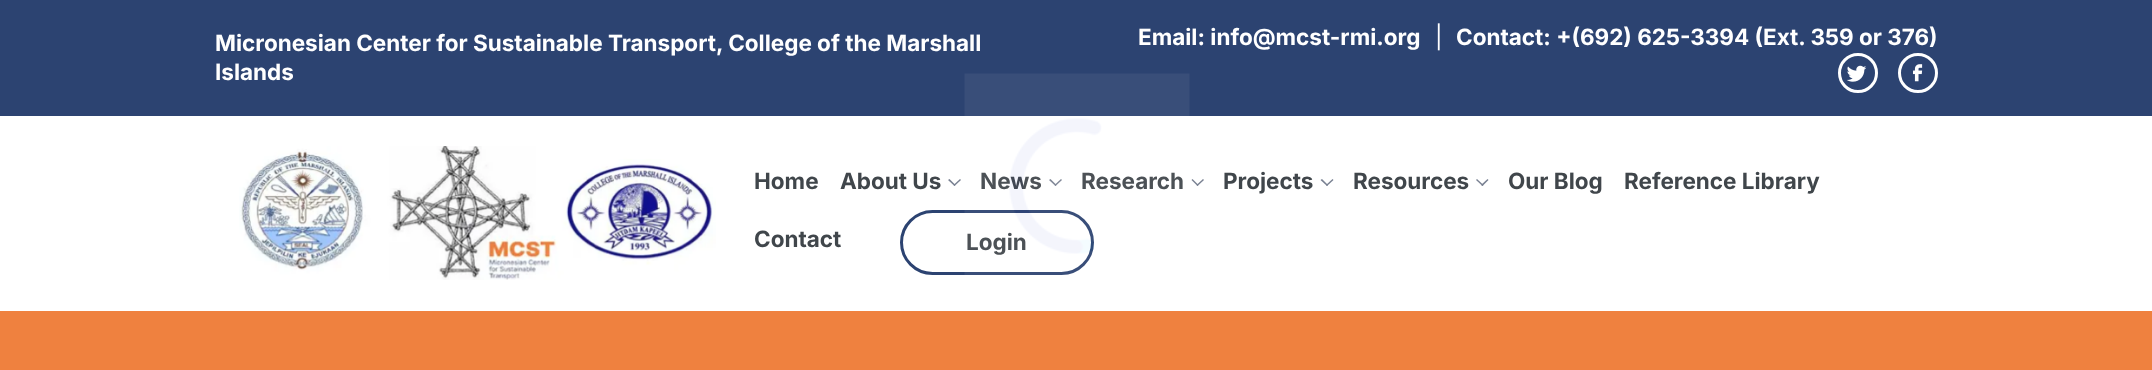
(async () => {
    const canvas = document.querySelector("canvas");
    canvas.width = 2152;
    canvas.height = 370;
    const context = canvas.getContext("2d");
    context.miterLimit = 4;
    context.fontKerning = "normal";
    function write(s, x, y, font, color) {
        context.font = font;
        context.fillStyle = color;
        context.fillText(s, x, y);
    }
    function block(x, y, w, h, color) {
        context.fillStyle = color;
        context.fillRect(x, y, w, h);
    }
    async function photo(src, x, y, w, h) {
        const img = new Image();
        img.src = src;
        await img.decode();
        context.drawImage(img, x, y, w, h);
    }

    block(0, 0, 2152, 370, "rgb(255, 255, 255)");
    block(0, 0, 2152, 116, "rgb(44, 67, 113)");
    write("Micronesian Center for Sustainable Transport, College of the Marshall", 215, 51, "bold 22.5px Inter", "rgb(255, 255, 255)");
    write("Islands", 215, 80, "bold 22.5px Inter", "rgb(255, 255, 255)");
    write("Email: info@mcst-rmi.org", 1138, 45, "bold 22.5px Inter", "rgb(255, 255, 255)");
    write("|", 1435, 45, "22.5px Inter", "rgb(255, 255, 255)");
    write("Contact: +(692) 625-3394 (Ext. 359 or 376)", 1456, 45, "bold 22.5px Inter", "rgb(255, 255, 255)");
    context.beginPath();
    context.arc(1858, 73, 18.5, 0, Math.PI * 2);
    context.strokeStyle = "rgb(255, 255, 255)";
    context.lineWidth = 3;
    context.stroke();
    await photo("media/1.png", 1847, 65, 20, 17);
    context.beginPath();
    context.arc(1918, 73, 18.5, 0, Math.PI * 2);
    context.stroke();
    await photo("media/2.png", 1913, 64, 10, 18);
    await photo("media/3.png", 239, 146, 477, 134);
    write("Home", 754, 189, "bold 22.5px Inter", "rgb(64, 70, 75)");
    write("About Us", 840, 189, "bold 22.5px Inter", "rgb(64, 70, 75)");
    context.fillStyle = "rgb(121, 129, 146)";
    context.beginPath();
    context.moveTo(960, 179);
    context.lineTo(961, 180);
    context.lineTo(954.5, 186);
    context.lineTo(953.5, 185);
    context.closePath();
    context.fill();
    context.beginPath();
    context.moveTo(949.5, 179);
    context.lineTo(955.5, 185);
    context.lineTo(954.5, 186);
    context.lineTo(948, 180);
    context.closePath();
    context.fill();
    write("News", 980, 189, "bold 22.5px Inter", "rgb(64, 70, 75)");
    context.fillStyle = "rgb(121, 129, 146)";
    context.beginPath();
    context.moveTo(1061, 179);
    context.lineTo(1062, 180);
    context.lineTo(1055.5, 186);
    context.lineTo(1054.5, 185);
    context.closePath();
    context.fill();
    context.beginPath();
    context.moveTo(1050.5, 179);
    context.lineTo(1056.5, 185);
    context.lineTo(1055.5, 186);
    context.lineTo(1049, 180);
    context.closePath();
    context.fill();
    write("Research", 1081, 189, "bold 22.5px Inter", "rgb(64, 70, 75)");
    context.fillStyle = "rgb(121, 129, 146)";
    context.beginPath();
    context.moveTo(1203, 179);
    context.lineTo(1204, 180);
    context.lineTo(1197.5, 186);
    context.lineTo(1196.5, 185);
    context.closePath();
    context.fill();
    context.beginPath();
    context.moveTo(1192.5, 179);
    context.lineTo(1198.5, 185);
    context.lineTo(1197.5, 186);
    context.lineTo(1191.5, 180);
    context.closePath();
    context.fill();
    write("Projects", 1223, 189, "bold 22.5px Inter", "rgb(64, 70, 75)");
    context.fillStyle = "rgb(121, 129, 146)";
    context.beginPath();
    context.moveTo(1332.5, 179);
    context.lineTo(1333.5, 180);
    context.lineTo(1327, 186);
    context.lineTo(1326, 185);
    context.closePath();
    context.fill();
    context.beginPath();
    context.moveTo(1322, 179);
    context.lineTo(1328, 185);
    context.lineTo(1327, 186);
    context.lineTo(1320.5, 180);
    context.closePath();
    context.fill();
    write("Resources", 1353, 189, "bold 22.5px Inter", "rgb(64, 70, 75)");
    context.fillStyle = "rgb(121, 129, 146)";
    context.beginPath();
    context.moveTo(1487.5, 179);
    context.lineTo(1488.5, 180);
    context.lineTo(1482.5, 186);
    context.lineTo(1481, 185);
    context.closePath();
    context.fill();
    context.beginPath();
    context.moveTo(1477, 179);
    context.lineTo(1483.5, 185);
    context.lineTo(1482.5, 186);
    context.lineTo(1476, 180);
    context.closePath();
    context.fill();
    write("Our Blog", 1508, 189, "bold 22.5px Inter", "rgb(64, 70, 75)");
    write("Reference Library", 1624, 189, "bold 22.5px Inter", "rgb(64, 70, 75)");
    write("Contact", 754, 247, "bold 22.5px Inter", "rgb(64, 70, 75)");
    context.beginPath();
    context.roundRect(901.5, 211.5, 191, 62, 31);
    context.strokeStyle = "rgb(44, 67, 113)";
    context.stroke();
    write("Login", 966, 250, "bold 22.5px Inter", "rgb(64, 70, 75)");
    await photo("media/4.png", 964, 73, 226, 202);
    block(0, 311, 2152, 59, "rgb(239, 129, 63)");
})();
